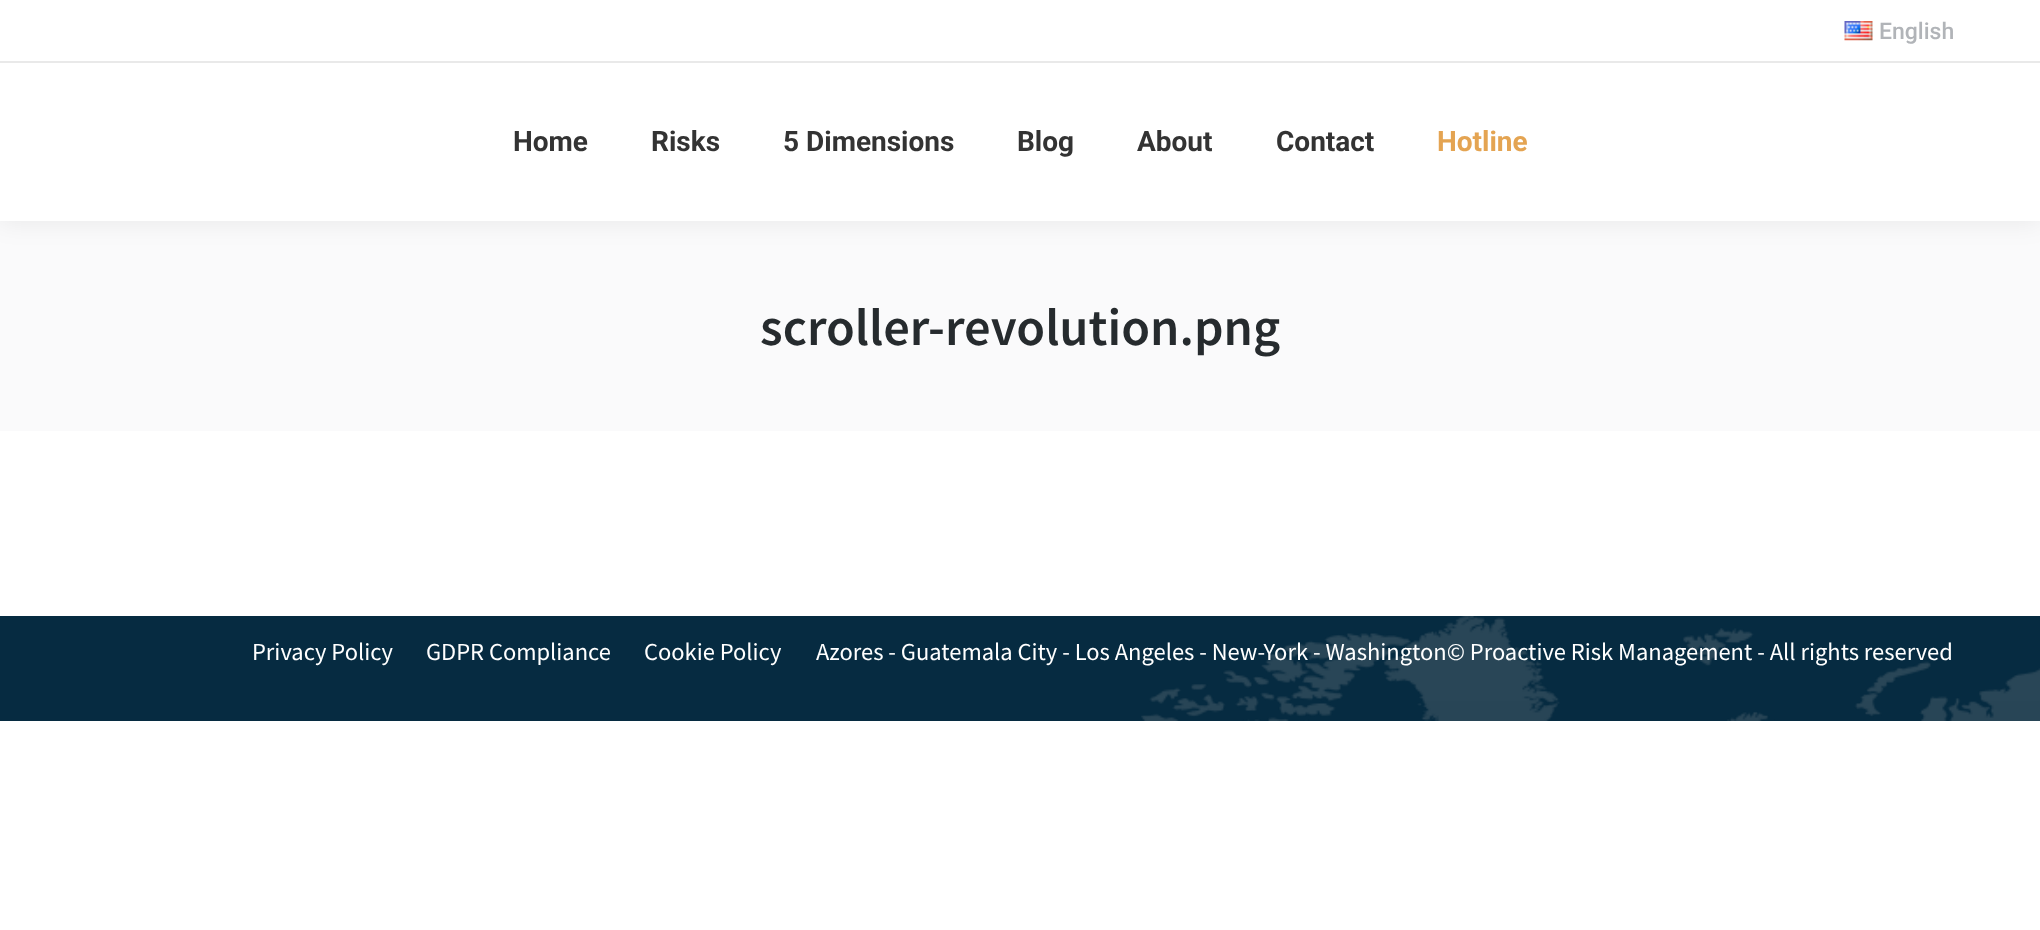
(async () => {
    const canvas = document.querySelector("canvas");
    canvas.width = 2040;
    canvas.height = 930;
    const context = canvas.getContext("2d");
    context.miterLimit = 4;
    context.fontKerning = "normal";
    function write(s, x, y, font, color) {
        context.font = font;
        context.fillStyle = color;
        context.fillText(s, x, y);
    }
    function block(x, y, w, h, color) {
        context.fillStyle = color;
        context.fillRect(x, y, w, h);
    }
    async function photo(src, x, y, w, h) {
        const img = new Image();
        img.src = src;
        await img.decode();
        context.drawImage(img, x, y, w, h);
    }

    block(0, 0, 2040, 930, "rgb(255, 255, 255)");
    block(0, 221, 2040, 210, "rgb(250, 250, 251)");
    context.fillStyle = "rgba(0, 0, 0, 0.07)";
    context.filter = "blur(13px)";
    context.beginPath();
    context.rect(-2, -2, 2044, 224);
    context.fill();
    context.filter = "none";
    block(0, 0, 2040, 221, "rgb(255, 255, 255)");
    await photo("media/1.png", 1844, 21, 29, 20);
    write("English", 1879, 39, "500 23px Roboto", "rgb(177, 180, 184)");
    block(0, 61, 2040, 2, "rgb(233, 233, 233)");
    write("Home", 513, 151, "bold 28px Roboto", "rgb(51, 51, 51)");
    write("Risks", 651, 151, "bold 28px Roboto", "rgb(51, 51, 51)");
    write("5 Dimensions", 783, 151, "bold 28px Roboto", "rgb(51, 51, 51)");
    write("Blog", 1017, 151, "bold 28px Roboto", "rgb(51, 51, 51)");
    write("About", 1137, 151, "bold 28px Roboto", "rgb(51, 51, 51)");
    write("Contact", 1276, 151, "bold 28px Roboto", "rgb(51, 51, 51)");
    write("Hotline", 1437, 151, "bold 28px Roboto", "rgb(228, 164, 82)");
    write("scroller-revolution.png", 760, 345, "600 52.5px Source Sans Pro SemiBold", "rgb(38, 43, 46)");
    block(0, 616, 2040, 105, "rgb(6, 43, 65)");
    await photo("media/2.png", 1141, 616, 899, 105);
    write("Privacy Policy", 252, 660, "24.5px Source Sans Pro", "rgb(255, 255, 255)");
    write("GDPR Compliance", 426, 660, "24.5px Source Sans Pro", "rgb(255, 255, 255)");
    write("Cookie Policy", 644, 660, "24.5px Source Sans Pro", "rgb(255, 255, 255)");
    write("Azores - Guatemala City - Los Angeles - New-York - Washington© Proactive Risk Management - All rights reserved", 816, 660, "24.5px Source Sans Pro", "rgb(255, 255, 255)");
})();
